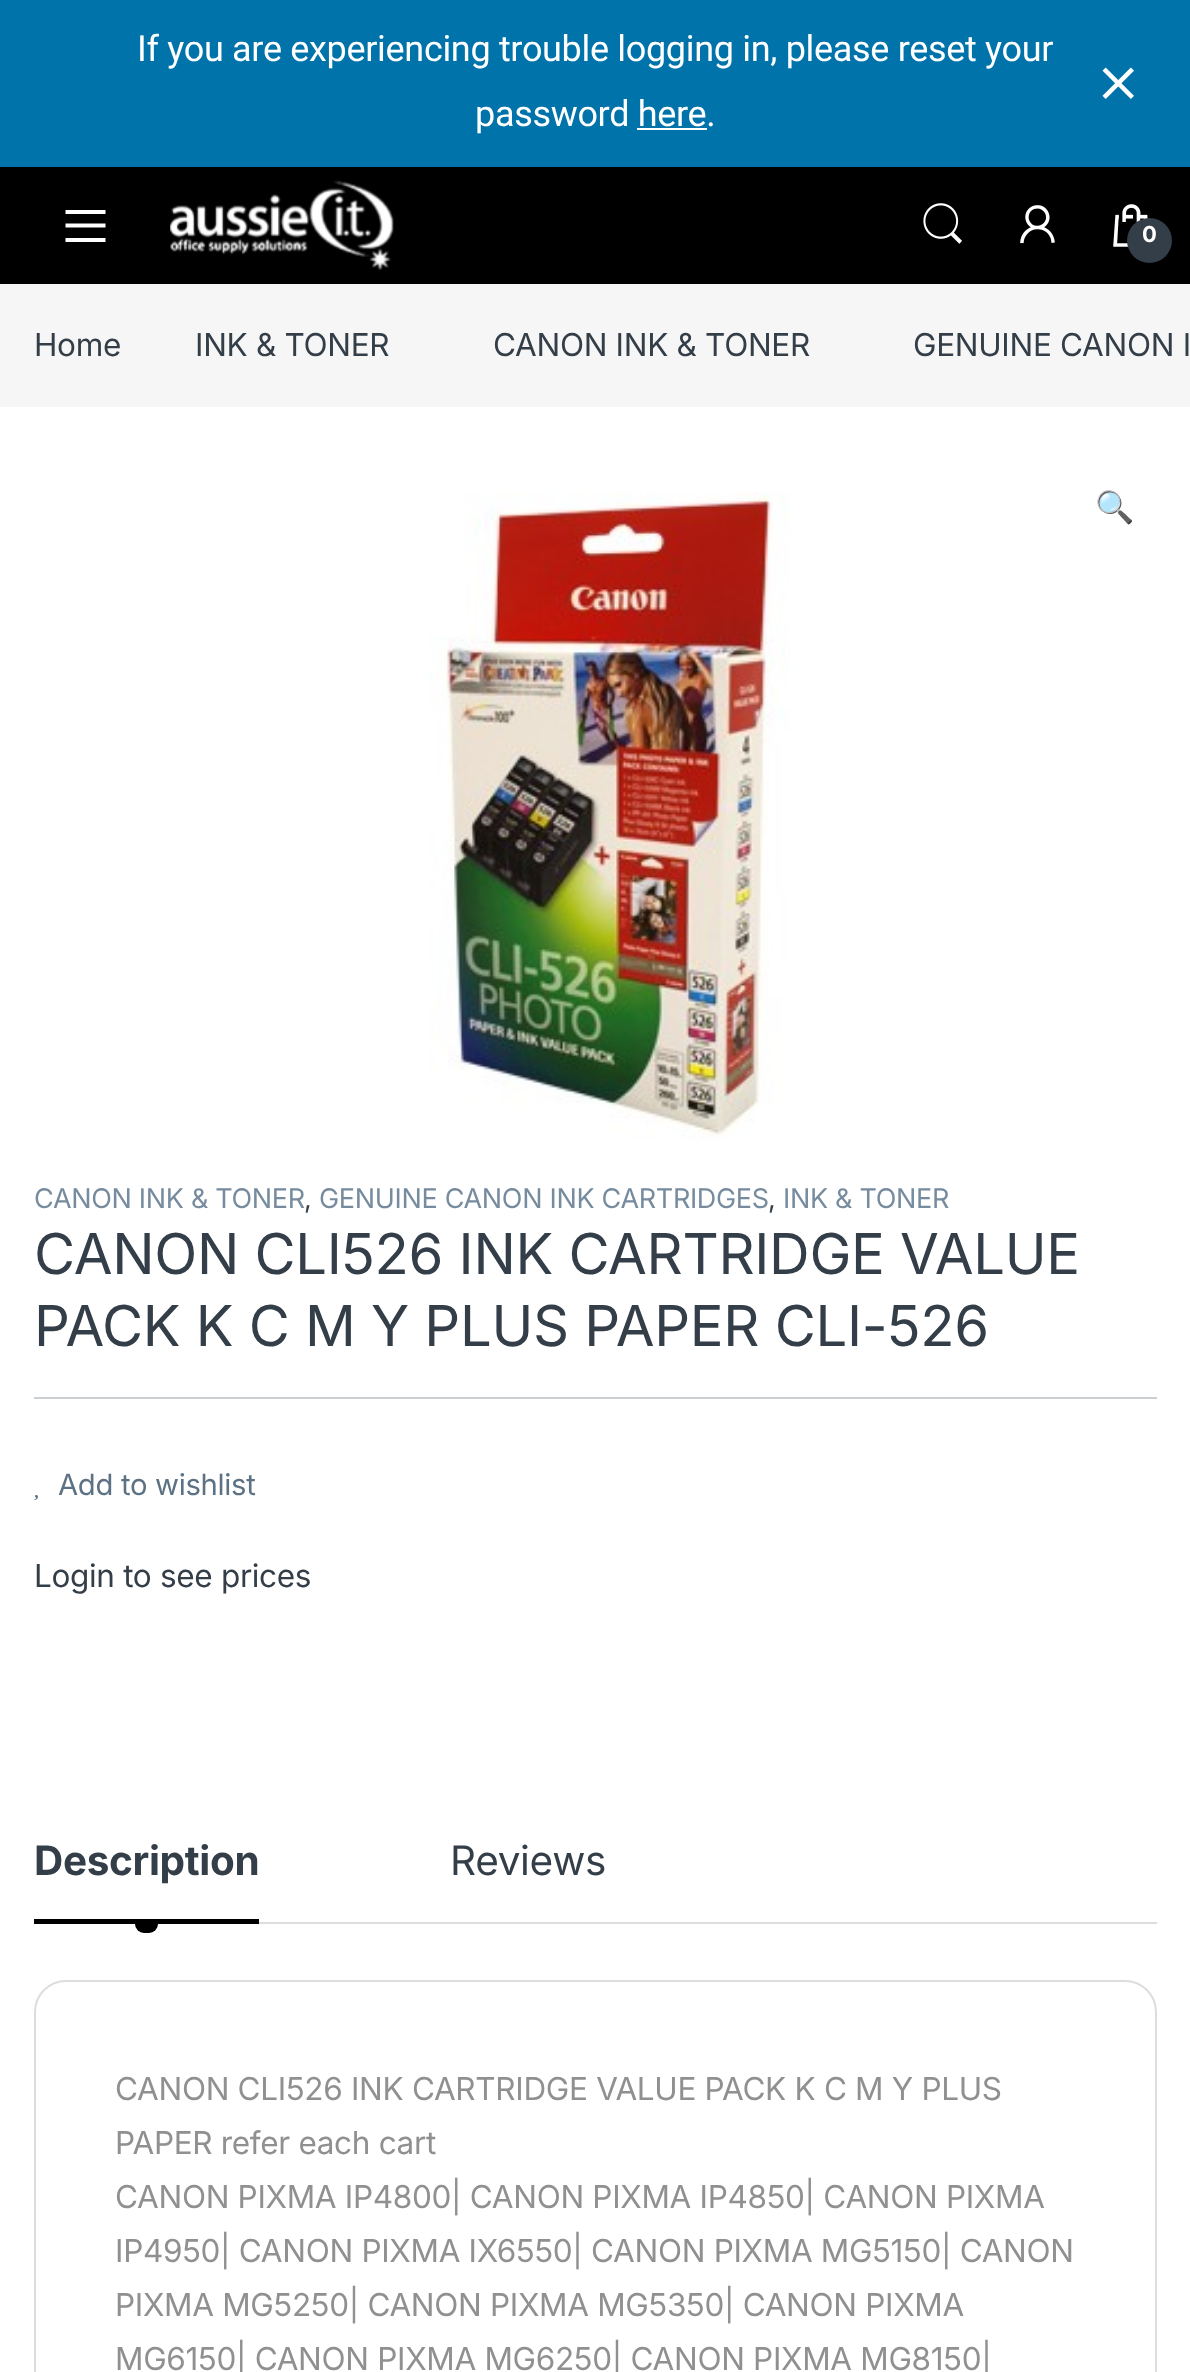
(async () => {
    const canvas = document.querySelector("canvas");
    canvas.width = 1190;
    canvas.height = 2372;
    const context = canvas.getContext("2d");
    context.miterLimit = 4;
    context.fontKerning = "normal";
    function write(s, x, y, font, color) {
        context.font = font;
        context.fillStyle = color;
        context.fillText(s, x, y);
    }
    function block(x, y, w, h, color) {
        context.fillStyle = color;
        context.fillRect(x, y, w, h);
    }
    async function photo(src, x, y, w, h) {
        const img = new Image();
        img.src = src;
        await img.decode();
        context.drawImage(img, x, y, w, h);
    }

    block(0, 0, 1190, 2372, "rgb(255, 255, 255)");
    block(0, 0, 1190, 167, "rgb(0, 115, 170)");
    context.letterSpacing = "-0.32px";
    write("If you are experiencing trouble logging in, please reset your", 137, 61, "36px Roboto", "rgb(255, 255, 255)");
    write("password here.", 475, 126, "36px Roboto", "rgb(255, 255, 255)");
    block(637, 128, 70, 2, "rgb(255, 255, 255)");
    await photo("media/1.png", 1102, 67, 32, 32);
    block(0, 167, 1190, 117, "rgb(0, 0, 0)");
    context.fillStyle = "rgb(255, 255, 255)";
    context.beginPath();
    context.moveTo(65.5, 242);
    context.lineTo(65.5, 238);
    context.lineTo(105.5, 238);
    context.lineTo(105.5, 242);
    context.closePath();
    context.moveTo(65.5, 223.5);
    context.lineTo(105.5, 223.5);
    context.lineTo(105.5, 227.5);
    context.lineTo(65.5, 227.5);
    context.closePath();
    context.moveTo(65.5, 210);
    context.lineTo(105.5, 210);
    context.lineTo(105.5, 214);
    context.lineTo(65.5, 214);
    context.closePath();
    context.fill();
    await photo("media/2.png", 170, 180, 224, 90);
    await photo("media/3.png", 923, 203, 39, 41);
    await photo("media/4.png", 1020, 205, 35, 39);
    await photo("media/5.png", 1113, 204, 35, 43);
    context.fillStyle = "rgb(51, 62, 72)";
    context.beginPath();
    context.arc(1149.5, 240.5, 22.5, 0, Math.PI * 2);
    context.fill();
    write("0", 1142, 242, "bold 22px Inter", "rgb(255, 255, 255)");
    block(0, 284, 1190, 123, "rgb(247, 246, 246)");
    write("Home", 34, 356, "31.5px Inter", "rgb(51, 62, 72)");
    write("INK & TONER", 195, 356, "31.5px Inter", "rgb(51, 62, 72)");
    write("CANON INK & TONER", 493, 356, "31.5px Inter", "rgb(51, 62, 72)");
    write("GENUINE CANON I", 913, 356, "31.5px Inter", "rgb(51, 62, 72)");
    await photo("media/6.png", 429, 492, 361, 648);
    write("🔍", 1095, 518, "31.5px Noto Color Emoji", "rgb(51, 62, 72)");
    write("CANON INK & TONER", 34, 1208, "27px Inter", "rgb(118, 139, 158)");
    write(",", 304, 1208, "27px Inter", "rgb(51, 62, 72)");
    write("GENUINE CANON INK CARTRIDGES", 319, 1208, "27px Inter", "rgb(118, 139, 158)");
    write(",", 768, 1208, "27px Inter", "rgb(51, 62, 72)");
    write("INK & TONER", 783, 1208, "27px Inter", "rgb(118, 139, 158)");
    write("CANON CLI526 INK CARTRIDGE VALUE", 34, 1274, "56.25px Inter", "rgb(51, 62, 72)");
    write("PACK K C M Y PLUS PAPER CLI-526", 34, 1346, "56.25px Inter", "rgb(51, 62, 72)");
    block(34, 1397, 1123, 2, "rgb(204, 207, 209)");
    write("Add to wishlist", 58, 1495, "29.25px Inter", "rgb(93, 113, 132)");
    await photo("media/7.png", 34, 1495, 4, 6);
    write("Login to see prices", 34, 1587, "31.5px Inter", "rgb(51, 62, 72)");
    write("Description", 34, 1875, "bold 40.5px Inter", "rgb(51, 62, 72)");
    block(34, 1919, 225, 5, "rgb(0, 0, 0)");
    context.beginPath();
    context.roundRect(135, 1924, 23, 9, [0, 0, 9, 9]);
    context.fill();
    write("Reviews", 450, 1875, "40.5px Inter", "rgb(51, 62, 72)");
    block(259, 1922, 898, 2, "rgb(221, 221, 221)");
    context.beginPath();
    context.roundRect(35, 1981, 1121, 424, 31);
    context.strokeStyle = "rgb(221, 221, 221)";
    context.lineWidth = 2;
    context.stroke();
    write("CANON CLI526 INK CARTRIDGE VALUE PACK K C M Y PLUS", 115, 2100, "31.5px Inter", "rgb(145, 144, 144)");
    write("PAPER refer each cart", 115, 2154, "31.5px Inter", "rgb(145, 144, 144)");
    write("CANON PIXMA IP4800| CANON PIXMA IP4850| CANON PIXMA", 115, 2208, "31.5px Inter", "rgb(145, 144, 144)");
    write("IP4950| CANON PIXMA IX6550| CANON PIXMA MG5150| CANON", 115, 2262, "31.5px Inter", "rgb(145, 144, 144)");
    write("PIXMA MG5250| CANON PIXMA MG5350| CANON PIXMA", 115, 2316, "31.5px Inter", "rgb(145, 144, 144)");
    write("MG6150| CANON PIXMA MG6250| CANON PIXMA MG8150|", 115, 2370, "31.5px Inter", "rgb(145, 144, 144)");
})();
